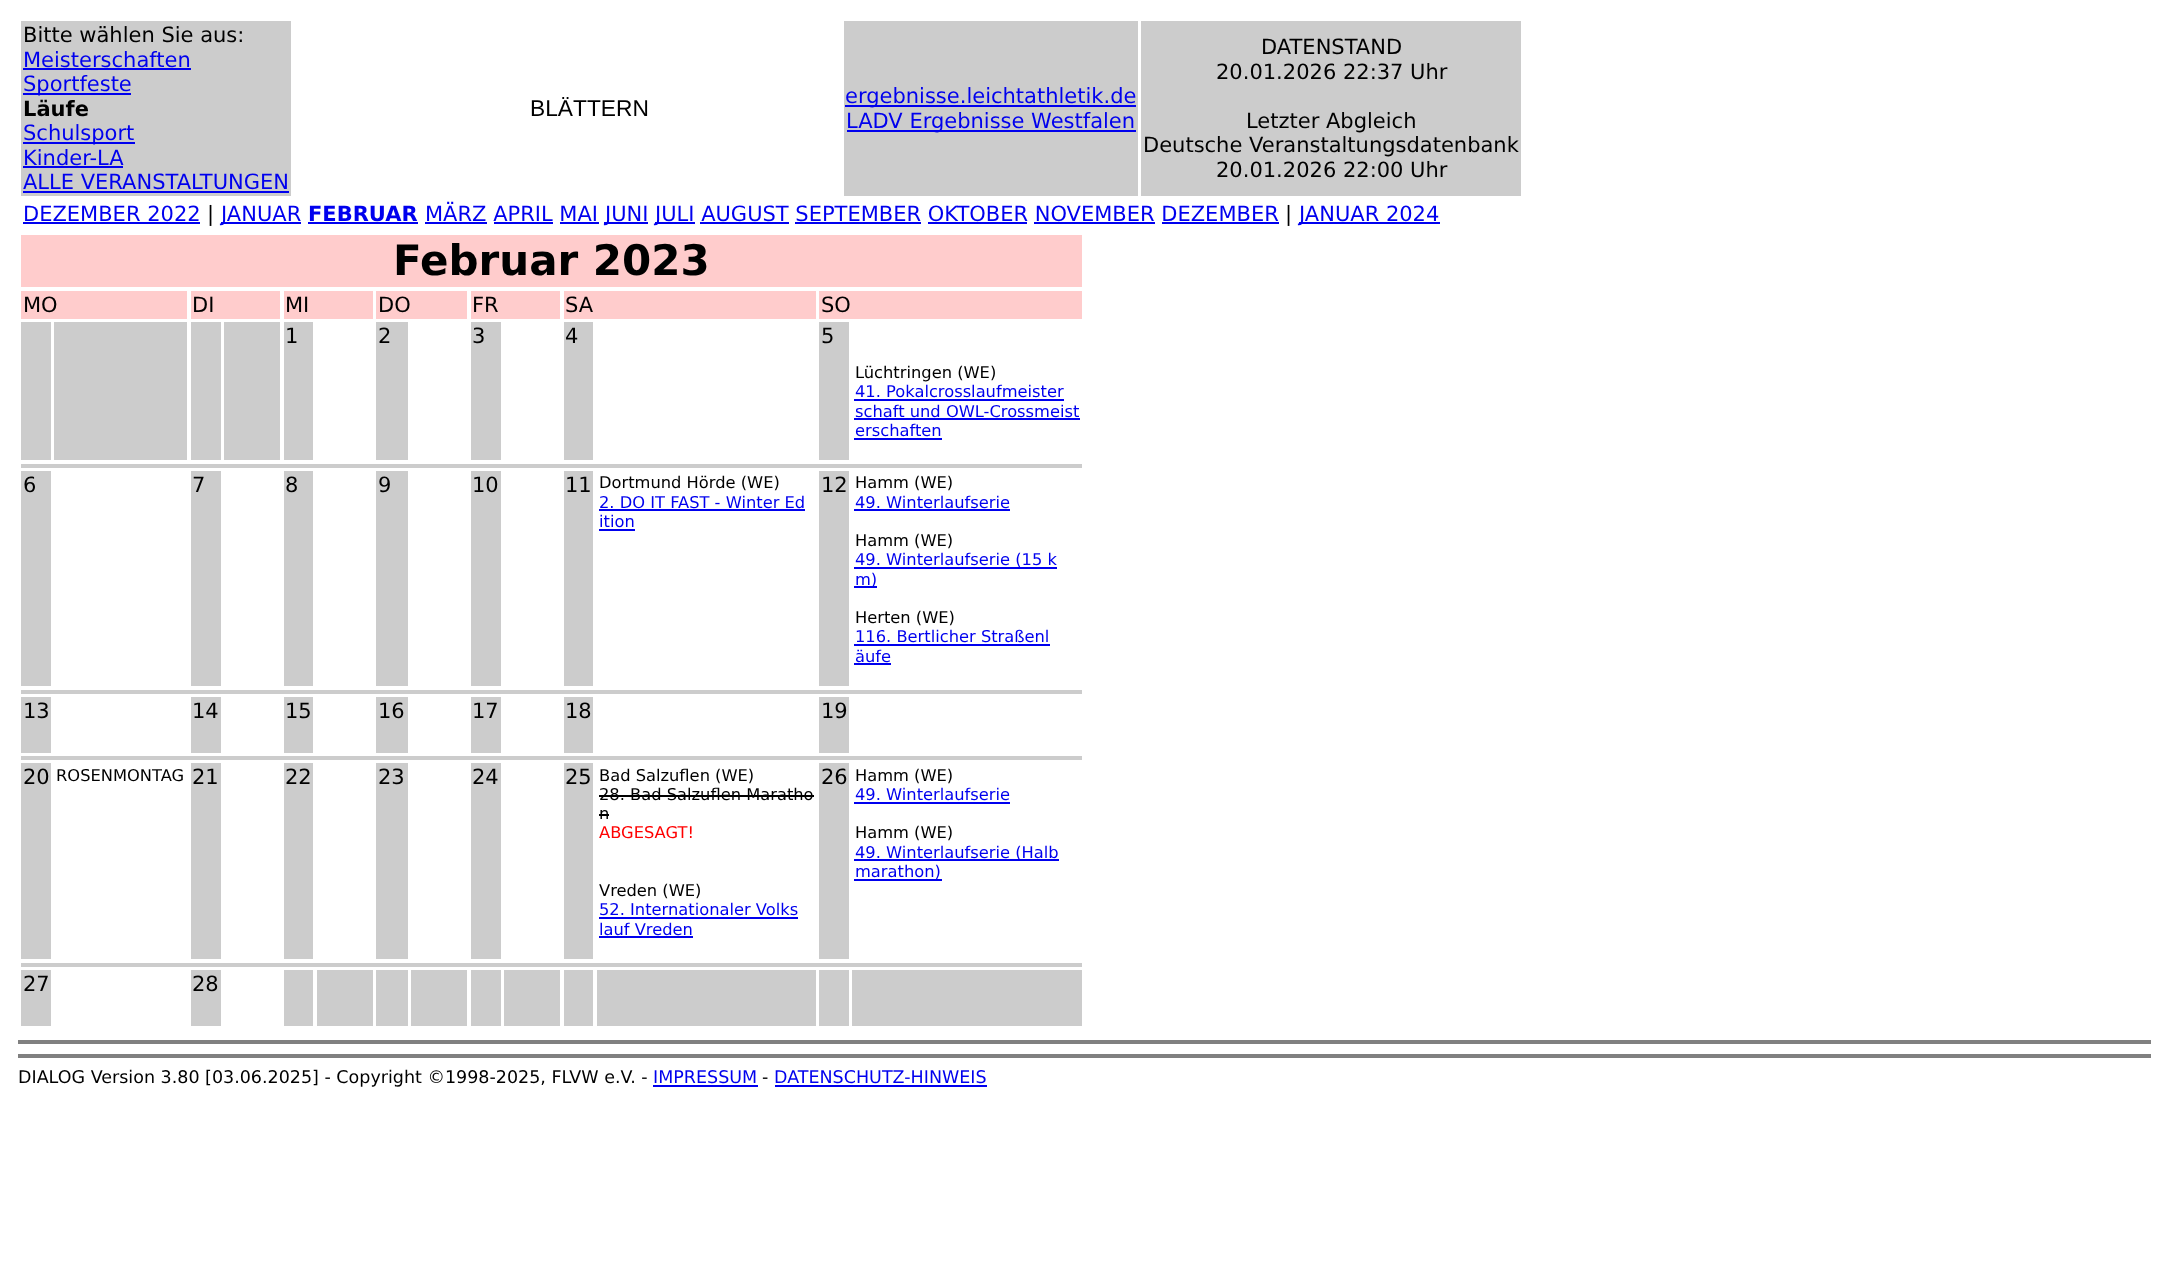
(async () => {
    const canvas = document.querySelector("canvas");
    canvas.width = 2164;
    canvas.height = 1281;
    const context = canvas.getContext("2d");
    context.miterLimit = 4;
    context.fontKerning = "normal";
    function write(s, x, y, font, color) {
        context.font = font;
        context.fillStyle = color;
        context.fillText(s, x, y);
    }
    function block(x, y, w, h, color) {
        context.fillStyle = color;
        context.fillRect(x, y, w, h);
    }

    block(0, 0, 2164, 1281, "rgb(255, 255, 255)");
    block(21, 21, 270, 175, "rgb(204, 204, 204)");
    write("Bitte wählen Sie aus:", 23, 42, "21px DejaVu Sans", "rgb(0, 0, 0)");
    write("Meisterschaften", 23, 67, "21px DejaVu Sans", "rgb(0, 0, 238)");
    block(23, 68, 168, 2, "rgb(0, 0, 238)");
    block(23, 93, 108, 2, "rgb(0, 0, 238)");
    write("Sportfeste", 23, 91, "21px DejaVu Sans", "rgb(0, 0, 238)");
    write("Läufe", 23, 116, "bold 21px DejaVu Sans", "rgb(0, 0, 0)");
    block(23, 142, 112, 2, "rgb(0, 0, 238)");
    write("Schulsport", 23, 140, "21px DejaVu Sans", "rgb(0, 0, 238)");
    write("Kinder-LA", 23, 165, "21px DejaVu Sans", "rgb(0, 0, 238)");
    block(23, 166, 100, 2, "rgb(0, 0, 238)");
    write("ALLE VERANSTALTUNGEN", 23, 189, "21px DejaVu Sans", "rgb(0, 0, 238)");
    block(23, 191, 266, 2, "rgb(0, 0, 238)");
    write("BLÄTTERN", 530, 116, "22.75px Liberation Sans", "rgb(0, 0, 0)");
    block(844, 21, 294, 175, "rgb(204, 204, 204)");
    block(845, 105, 291, 2, "rgb(0, 0, 238)");
    write("ergebnisse.leichtathletik.de", 845, 103, "21px DejaVu Sans", "rgb(0, 0, 238)");
    block(847, 130, 289, 2, "rgb(0, 0, 238)");
    write("LADV Ergebnisse Westfalen", 846, 128, "21px DejaVu Sans", "rgb(0, 0, 238)");
    block(1141, 21, 380, 175, "rgb(204, 204, 204)");
    write("DATENSTAND", 1261, 54, "21px DejaVu Sans", "rgb(0, 0, 0)");
    write("20.01.2026 22:37 Uhr", 1216, 79, "21px DejaVu Sans", "rgb(0, 0, 0)");
    write("Letzter Abgleich", 1246, 128, "21px DejaVu Sans", "rgb(0, 0, 0)");
    write("Deutsche Veranstaltungsdatenbank", 1143, 152, "21px DejaVu Sans", "rgb(0, 0, 0)");
    write("20.01.2026 22:00 Uhr", 1216, 177, "21px DejaVu Sans", "rgb(0, 0, 0)");
    write("DEZEMBER 2022", 23, 221, "21px DejaVu Sans", "rgb(0, 0, 238)");
    block(23, 222, 177, 2, "rgb(0, 0, 238)");
    write("|", 207, 221, "21px DejaVu Sans", "rgb(0, 0, 0)");
    block(221, 222, 80, 2, "rgb(0, 0, 238)");
    write("JANUAR", 221, 221, "21px DejaVu Sans", "rgb(0, 0, 238)");
    write("FEBRUAR", 308, 221, "bold 21px DejaVu Sans", "rgb(0, 0, 238)");
    block(308, 222, 110, 2, "rgb(0, 0, 238)");
    write("MÄRZ APRIL MAI", 425, 221, "21px DejaVu Sans", "rgb(0, 0, 238)");
    block(425, 222, 62, 2, "rgb(0, 0, 238)");
    block(604, 222, 44, 2, "rgb(0, 0, 238)");
    write("JUNI", 605, 221, "21px DejaVu Sans", "rgb(0, 0, 238)");
    block(655, 222, 40, 2, "rgb(0, 0, 238)");
    write("JULI AUGUST SEPTEMBER OKTOBER NOVEMBER DEZEMBER", 655, 221, "21px DejaVu Sans", "rgb(0, 0, 238)");
    write("|", 1285, 221, "21px DejaVu Sans", "rgb(0, 0, 0)");
    block(1299, 222, 141, 2, "rgb(0, 0, 238)");
    write("JANUAR 2024", 1299, 221, "21px DejaVu Sans", "rgb(0, 0, 238)");
    block(494, 222, 59, 2, "rgb(0, 0, 238)");
    block(560, 222, 39, 2, "rgb(0, 0, 238)");
    block(700, 222, 89, 2, "rgb(0, 0, 238)");
    block(795, 222, 126, 2, "rgb(0, 0, 238)");
    block(928, 222, 99, 2, "rgb(0, 0, 238)");
    block(1034, 222, 121, 2, "rgb(0, 0, 238)");
    block(1162, 222, 117, 2, "rgb(0, 0, 238)");
    block(21, 235, 1061, 52, "rgb(255, 204, 204)");
    write("Februar 2023", 393, 275, "bold 42px DejaVu Sans", "rgb(0, 0, 0)");
    block(21, 291, 166, 28, "rgb(255, 204, 204)");
    write("MO", 23, 312, "21px DejaVu Sans", "rgb(0, 0, 0)");
    block(191, 291, 89, 28, "rgb(255, 204, 204)");
    write("DI", 192, 312, "21px DejaVu Sans", "rgb(0, 0, 0)");
    block(284, 291, 89, 28, "rgb(255, 204, 204)");
    write("MI", 285, 312, "21px DejaVu Sans", "rgb(0, 0, 0)");
    block(376, 291, 91, 28, "rgb(255, 204, 204)");
    write("DO", 378, 312, "21px DejaVu Sans", "rgb(0, 0, 0)");
    block(471, 291, 89, 28, "rgb(255, 204, 204)");
    write("FR", 472, 312, "21px DejaVu Sans", "rgb(0, 0, 0)");
    block(564, 291, 252, 28, "rgb(255, 204, 204)");
    write("SA", 565, 312, "21px DejaVu Sans", "rgb(0, 0, 0)");
    block(819, 291, 263, 28, "rgb(255, 204, 204)");
    write("SO", 821, 312, "21px DejaVu Sans", "rgb(0, 0, 0)");
    block(21, 322, 30, 138, "rgb(204, 204, 204)");
    block(54, 322, 133, 138, "rgb(204, 204, 204)");
    block(191, 322, 30, 138, "rgb(204, 204, 204)");
    block(224, 322, 56, 138, "rgb(204, 204, 204)");
    block(284, 322, 29, 138, "rgb(204, 204, 204)");
    write("1", 285, 343, "21px DejaVu Sans", "rgb(0, 0, 0)");
    block(376, 322, 32, 138, "rgb(204, 204, 204)");
    write("2", 378, 343, "21px DejaVu Sans", "rgb(0, 0, 0)");
    block(471, 322, 30, 138, "rgb(204, 204, 204)");
    write("3", 472, 343, "21px DejaVu Sans", "rgb(0, 0, 0)");
    block(564, 322, 29, 138, "rgb(204, 204, 204)");
    write("4", 565, 343, "21px DejaVu Sans", "rgb(0, 0, 0)");
    block(819, 322, 30, 138, "rgb(204, 204, 204)");
    write("5", 821, 343, "21px DejaVu Sans", "rgb(0, 0, 0)");
    write("Lüchtringen (WE)", 855, 378, "16.3px DejaVu Sans", "rgb(0, 0, 0)");
    write("41. Pokalcrosslaufmeister", 855, 397, "16.3px DejaVu Sans", "rgb(0, 0, 238)");
    block(854, 399, 210, 2, "rgb(0, 0, 238)");
    write("schaft und OWL-Crossmeist", 855, 417, "16.3px DejaVu Sans", "rgb(0, 0, 238)");
    block(854, 418, 226, 2, "rgb(0, 0, 238)");
    write("erschaften", 855, 436, "16.3px DejaVu Sans", "rgb(0, 0, 238)");
    block(854, 438, 88, 2, "rgb(0, 0, 238)");
    block(21, 464, 1061, 4, "rgb(204, 204, 204)");
    block(21, 471, 30, 215, "rgb(204, 204, 204)");
    write("6", 23, 492, "21px DejaVu Sans", "rgb(0, 0, 0)");
    block(191, 471, 30, 215, "rgb(204, 204, 204)");
    write("7", 192, 492, "21px DejaVu Sans", "rgb(0, 0, 0)");
    block(284, 471, 29, 215, "rgb(204, 204, 204)");
    write("8", 285, 492, "21px DejaVu Sans", "rgb(0, 0, 0)");
    block(376, 471, 32, 215, "rgb(204, 204, 204)");
    write("9", 378, 492, "21px DejaVu Sans", "rgb(0, 0, 0)");
    block(471, 471, 30, 215, "rgb(204, 204, 204)");
    write("10", 472, 492, "21px DejaVu Sans", "rgb(0, 0, 0)");
    block(564, 471, 29, 215, "rgb(204, 204, 204)");
    write("11", 565, 492, "21px DejaVu Sans", "rgb(0, 0, 0)");
    write("Dortmund Hörde (WE)", 599, 488, "16.3px DejaVu Sans", "rgb(0, 0, 0)");
    write("2. DO IT FAST - Winter Ed", 599, 508, "16.3px DejaVu Sans", "rgb(0, 0, 238)");
    block(599, 509, 206, 2, "rgb(0, 0, 238)");
    write("ition", 599, 527, "16.3px DejaVu Sans", "rgb(0, 0, 238)");
    block(599, 529, 36, 2, "rgb(0, 0, 238)");
    block(819, 471, 30, 215, "rgb(204, 204, 204)");
    write("12", 821, 492, "21px DejaVu Sans", "rgb(0, 0, 0)");
    write("Hamm (WE)", 855, 488, "16.3px DejaVu Sans", "rgb(0, 0, 0)");
    write("49. Winterlaufserie", 855, 508, "16.3px DejaVu Sans", "rgb(0, 0, 238)");
    block(854, 509, 156, 2, "rgb(0, 0, 238)");
    write("Hamm (WE)", 855, 546, "16.3px DejaVu Sans", "rgb(0, 0, 0)");
    block(854, 567, 203, 2, "rgb(0, 0, 238)");
    write("49. Winterlaufserie (15 k", 855, 565, "16.3px DejaVu Sans", "rgb(0, 0, 238)");
    block(854, 586, 23, 2, "rgb(0, 0, 238)");
    write("m)", 855, 585, "16.3px DejaVu Sans", "rgb(0, 0, 238)");
    write("Herten (WE)", 855, 623, "16.3px DejaVu Sans", "rgb(0, 0, 0)");
    write("116. Bertlicher Straßenl", 855, 642, "16.3px DejaVu Sans", "rgb(0, 0, 238)");
    block(854, 644, 196, 2, "rgb(0, 0, 238)");
    write("äufe", 855, 662, "16.3px DejaVu Sans", "rgb(0, 0, 238)");
    block(854, 663, 37, 2, "rgb(0, 0, 238)");
    block(21, 690, 1061, 4, "rgb(204, 204, 204)");
    block(21, 697, 30, 56, "rgb(204, 204, 204)");
    write("13", 23, 718, "21px DejaVu Sans", "rgb(0, 0, 0)");
    block(191, 697, 30, 56, "rgb(204, 204, 204)");
    write("14", 192, 718, "21px DejaVu Sans", "rgb(0, 0, 0)");
    block(284, 697, 29, 56, "rgb(204, 204, 204)");
    write("15", 285, 718, "21px DejaVu Sans", "rgb(0, 0, 0)");
    block(376, 697, 32, 56, "rgb(204, 204, 204)");
    write("16", 378, 718, "21px DejaVu Sans", "rgb(0, 0, 0)");
    block(471, 697, 30, 56, "rgb(204, 204, 204)");
    write("17", 472, 718, "21px DejaVu Sans", "rgb(0, 0, 0)");
    block(564, 697, 29, 56, "rgb(204, 204, 204)");
    write("18", 565, 718, "21px DejaVu Sans", "rgb(0, 0, 0)");
    block(819, 697, 30, 56, "rgb(204, 204, 204)");
    write("19", 821, 718, "21px DejaVu Sans", "rgb(0, 0, 0)");
    block(21, 756, 1061, 4, "rgb(204, 204, 204)");
    block(21, 763, 30, 196, "rgb(204, 204, 204)");
    write("20", 23, 784, "21px DejaVu Sans", "rgb(0, 0, 0)");
    write("ROSENMONTAG", 56, 781, "16.3px DejaVu Sans", "rgb(0, 0, 0)");
    block(191, 763, 30, 196, "rgb(204, 204, 204)");
    write("21", 192, 784, "21px DejaVu Sans", "rgb(0, 0, 0)");
    block(284, 763, 29, 196, "rgb(204, 204, 204)");
    write("22", 285, 784, "21px DejaVu Sans", "rgb(0, 0, 0)");
    block(376, 763, 32, 196, "rgb(204, 204, 204)");
    write("23", 378, 784, "21px DejaVu Sans", "rgb(0, 0, 0)");
    block(471, 763, 30, 196, "rgb(204, 204, 204)");
    write("24", 472, 784, "21px DejaVu Sans", "rgb(0, 0, 0)");
    block(564, 763, 29, 196, "rgb(204, 204, 204)");
    write("25", 565, 784, "21px DejaVu Sans", "rgb(0, 0, 0)");
    write("Bad Salzuflen (WE)", 599, 781, "16.3px DejaVu Sans", "rgb(0, 0, 0)");
    write("28. Bad Salzuflen Maratho", 599, 800, "16.3px DejaVu Sans", "rgb(0, 0, 0)");
    block(599, 795, 215, 2, "rgb(0, 0, 0)");
    write("n", 599, 819, "16.3px DejaVu Sans", "rgb(0, 0, 0)");
    block(599, 814, 10, 2, "rgb(0, 0, 0)");
    write("ABGESAGT!", 599, 838, "16.3px DejaVu Sans", "rgb(255, 0, 0)");
    write("Vreden (WE)", 599, 896, "16.3px DejaVu Sans", "rgb(0, 0, 0)");
    write("52. Internationaler Volks", 599, 915, "16.3px DejaVu Sans", "rgb(0, 0, 238)");
    block(599, 917, 199, 2, "rgb(0, 0, 238)");
    write("lauf Vreden", 599, 935, "16.3px DejaVu Sans", "rgb(0, 0, 238)");
    block(599, 936, 94, 2, "rgb(0, 0, 238)");
    block(819, 763, 30, 196, "rgb(204, 204, 204)");
    write("26", 821, 784, "21px DejaVu Sans", "rgb(0, 0, 0)");
    write("Hamm (WE)", 855, 781, "16.3px DejaVu Sans", "rgb(0, 0, 0)");
    write("49. Winterlaufserie", 855, 800, "16.3px DejaVu Sans", "rgb(0, 0, 238)");
    block(854, 802, 156, 2, "rgb(0, 0, 238)");
    write("Hamm (WE)", 855, 838, "16.3px DejaVu Sans", "rgb(0, 0, 0)");
    block(854, 859, 205, 2, "rgb(0, 0, 238)");
    write("49. Winterlaufserie (Halb", 855, 858, "16.3px DejaVu Sans", "rgb(0, 0, 238)");
    block(854, 879, 88, 2, "rgb(0, 0, 238)");
    write("marathon)", 855, 877, "16.3px DejaVu Sans", "rgb(0, 0, 238)");
    block(21, 963, 1061, 4, "rgb(204, 204, 204)");
    block(21, 970, 30, 56, "rgb(204, 204, 204)");
    write("27", 23, 991, "21px DejaVu Sans", "rgb(0, 0, 0)");
    block(191, 970, 30, 56, "rgb(204, 204, 204)");
    write("28", 192, 991, "21px DejaVu Sans", "rgb(0, 0, 0)");
    block(284, 970, 29, 56, "rgb(204, 204, 204)");
    block(317, 970, 56, 56, "rgb(204, 204, 204)");
    block(376, 970, 32, 56, "rgb(204, 204, 204)");
    block(411, 970, 56, 56, "rgb(204, 204, 204)");
    block(471, 970, 30, 56, "rgb(204, 204, 204)");
    block(504, 970, 56, 56, "rgb(204, 204, 204)");
    block(564, 970, 29, 56, "rgb(204, 204, 204)");
    block(597, 970, 219, 56, "rgb(204, 204, 204)");
    block(819, 970, 30, 56, "rgb(204, 204, 204)");
    block(852, 970, 230, 56, "rgb(204, 204, 204)");
    block(18, 1040, 2133, 4, "rgb(128, 128, 128)");
    block(18, 1054, 2133, 4, "rgb(128, 128, 128)");
    write("DIALOG Version 3.80 [03.06.2025] - Copyright ©1998-2025, FLVW e.V. -", 18, 1083, "17.5px DejaVu Sans", "rgb(0, 0, 0)");
    write("IMPRESSUM", 653, 1083, "17.5px DejaVu Sans", "rgb(0, 0, 238)");
    block(653, 1085, 105, 2, "rgb(0, 0, 238)");
    write("-", 762, 1083, "17.5px DejaVu Sans", "rgb(0, 0, 0)");
    write("DATENSCHUTZ-HINWEIS", 774, 1083, "17.5px DejaVu Sans", "rgb(0, 0, 238)");
    block(775, 1085, 212, 2, "rgb(0, 0, 238)");
})();
